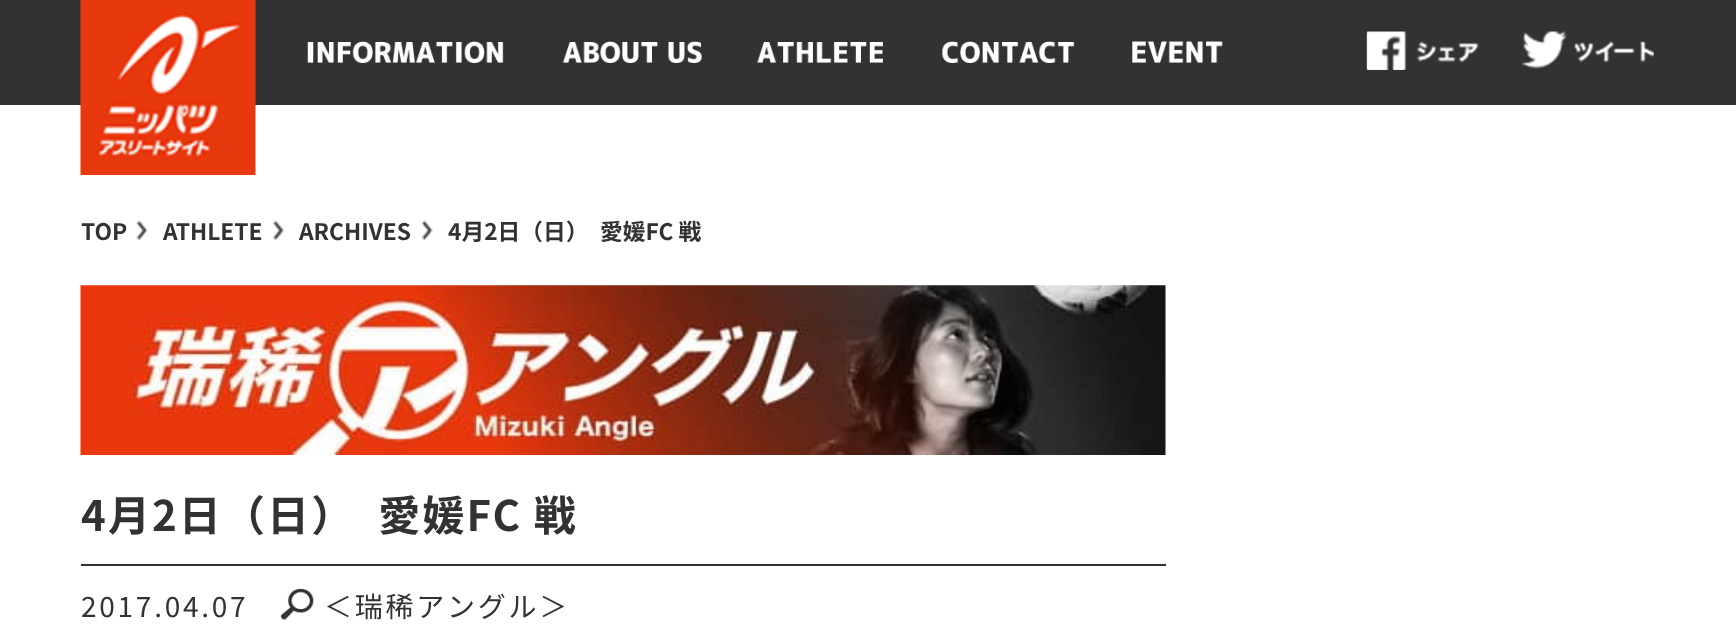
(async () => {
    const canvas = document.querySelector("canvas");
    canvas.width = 1736;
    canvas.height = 633;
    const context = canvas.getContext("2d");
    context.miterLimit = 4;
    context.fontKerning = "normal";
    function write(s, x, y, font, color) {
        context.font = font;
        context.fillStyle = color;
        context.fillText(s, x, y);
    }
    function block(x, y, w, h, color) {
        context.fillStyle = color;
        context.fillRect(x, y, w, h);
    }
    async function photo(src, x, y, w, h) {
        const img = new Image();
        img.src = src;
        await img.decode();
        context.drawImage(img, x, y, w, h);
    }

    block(0, 0, 1736, 633, "rgb(255, 255, 255)");
    block(0, 0, 1736, 105, "rgb(50, 50, 50)");
    await photo("media/1.png", 80, 0, 176, 175);
    await photo("media/2.png", 307, 41, 197, 22);
    await photo("media/3.png", 562, 41, 140, 22);
    await photo("media/4.png", 757, 42, 126, 21);
    await photo("media/5.png", 942, 41, 133, 22);
    await photo("media/6.png", 1132, 41, 91, 22);
    await photo("media/7.png", 1366, 31, 113, 39);
    await photo("media/8.png", 1522, 31, 132, 38);
    write("TOP", 81, 240, "bold 22.75px Noto Sans JP", "rgb(50, 50, 50)");
    await photo("media/9.png", 136, 220, 12, 20);
    write("ATHLETE", 163, 240, "bold 22.75px Noto Sans JP", "rgb(50, 50, 50)");
    await photo("media/10.png", 272, 220, 12, 20);
    write("ARCHIVES", 299, 240, "bold 22.75px Noto Sans JP", "rgb(50, 50, 50)");
    await photo("media/11.png", 421, 220, 12, 20);
    write("4月2日（日）　愛媛FC 戦", 448, 240, "bold 22.75px Noto Sans JP", "rgb(50, 50, 50)");
    await photo("media/12.png", 80, 285, 1086, 170);
    block(81, 564, 1085, 2, "rgb(50, 50, 50)");
    context.letterSpacing = "2.1px";
    write("4月2日（日）　愛媛FC 戦", 81, 531, "bold 42px Noto Sans JP", "rgb(50, 50, 50)");
    context.letterSpacing = "2.75px";
    write("2017.04.07", 81, 617, "28px Noto Sans JP", "rgb(50, 50, 50)");
    await photo("media/13.png", 280, 588, 34, 32);
    write("＜瑞稀アングル＞", 324, 617, "28px Noto Sans JP", "rgb(50, 50, 50)");
})();
